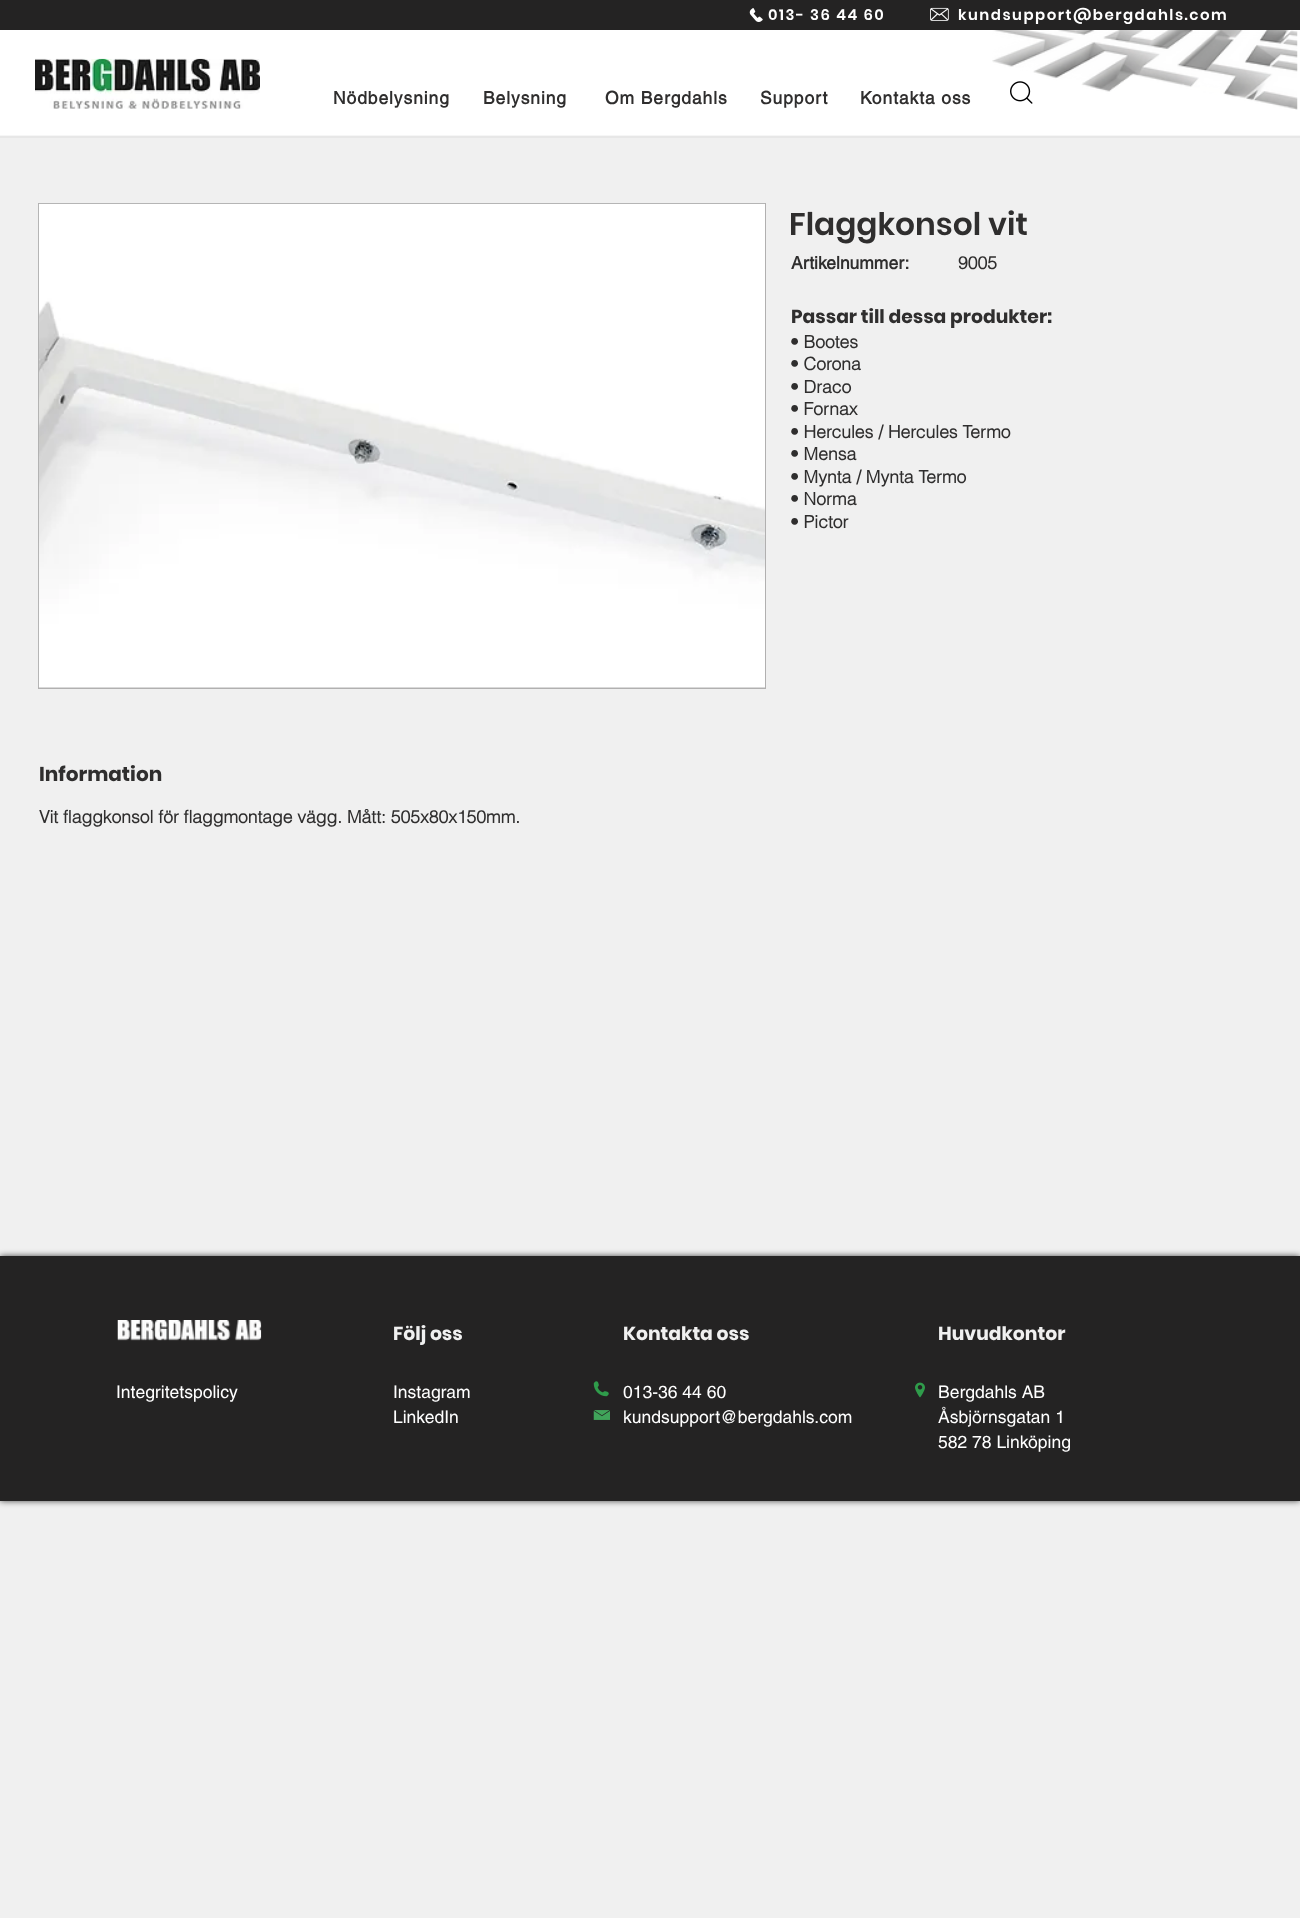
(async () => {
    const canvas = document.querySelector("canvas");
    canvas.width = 1300;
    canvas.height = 1918;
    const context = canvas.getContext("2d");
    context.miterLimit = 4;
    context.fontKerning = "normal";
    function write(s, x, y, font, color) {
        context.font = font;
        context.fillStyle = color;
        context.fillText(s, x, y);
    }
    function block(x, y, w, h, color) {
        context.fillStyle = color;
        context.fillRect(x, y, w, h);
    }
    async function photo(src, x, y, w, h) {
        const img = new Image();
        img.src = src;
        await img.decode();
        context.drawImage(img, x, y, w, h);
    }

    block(0, 0, 1300, 1918, "rgb(240, 240, 240)");
    block(0, 0, 1300, 30, "rgb(36, 35, 35)");
    await photo("media/1.png", 749, 8, 14, 14);
    context.letterSpacing = "1.5px";
    write("013- 36 44 60", 768, 20, "600 15px Poppins", "rgb(255, 255, 255)");
    await photo("media/2.png", 930, 7, 19, 14);
    write("kundsupport@bergdahls.com", 958, 20, "600 15px Poppins", "rgb(255, 255, 255)");
    block(0, 30, 1300, 105, "rgb(255, 255, 255)");
    block(0, 135, 1300, 1, "rgb(246, 246, 246)");
    await photo("media/3.png", 35, 58, 225, 51);
    await photo("media/4.png", 992, 30, 306, 80);
    context.letterSpacing = "0.9px";
    write("Nödbelysning", 333, 104, "bold 17.5px helvetica", "rgb(47, 46, 46)");
    write("Belysning", 483, 104, "bold 17.5px helvetica", "rgb(47, 46, 46)");
    write("Om Bergdahls", 605, 104, "bold 17.5px helvetica", "rgb(47, 46, 46)");
    write("Support", 760, 104, "bold 17.5px helvetica", "rgb(47, 46, 46)");
    write("Kontakta oss", 860, 104, "bold 17.5px helvetica", "rgb(47, 46, 46)");
    await photo("media/5.png", 1010, 81, 23, 23);
    block(39, 687, 726, 1, "rgb(204, 204, 204)");
    context.strokeStyle = "rgb(177, 176, 176)";
    context.strokeRect(38.5, 203.5, 727, 485);
    await photo("media/6.png", 38, 203, 727, 485);
    context.letterSpacing = "0px";
    write("Flaggkonsol vit", 789, 235, "600 31.25px Poppins", "rgb(47, 46, 46)");
    write("Artikelnummer:", 791, 269, "bold 17.5px helvetica", "rgb(47, 46, 46)");
    write("9005", 958, 269, "bold 17.5px 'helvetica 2'", "rgb(47, 46, 46)");
    write("Passar till dessa produkter:", 791, 323, "bold 18.75px Poppins", "rgb(47, 46, 46)");
    write("• Bootes", 790, 348, "bold 17.5px 'helvetica 2'", "rgb(47, 46, 46)");
    write("• Corona", 790, 370, "bold 17.5px 'helvetica 2'", "rgb(47, 46, 46)");
    write("• Draco", 790, 393, "bold 17.5px 'helvetica 2'", "rgb(47, 46, 46)");
    write("• Fornax", 790, 415, "bold 17.5px 'helvetica 2'", "rgb(47, 46, 46)");
    write("• Hercules / Hercules Termo", 790, 438, "bold 17.5px 'helvetica 2'", "rgb(47, 46, 46)");
    write("• Mensa", 790, 460, "bold 17.5px 'helvetica 2'", "rgb(47, 46, 46)");
    write("• Mynta / Mynta Termo", 790, 483, "bold 17.5px 'helvetica 2'", "rgb(47, 46, 46)");
    write("• Norma", 790, 505, "bold 17.5px 'helvetica 2'", "rgb(47, 46, 46)");
    write("• Pictor", 790, 528, "bold 17.5px 'helvetica 2'", "rgb(47, 46, 46)");
    write("Information", 39, 781, "bold 20px Poppins", "rgb(47, 46, 46)");
    write("Vit flaggkonsol för flaggmontage vägg. Mått: 505x80x150mm.", 39, 823, "bold 17.5px 'helvetica 2'", "rgb(47, 46, 46)");
    context.fillStyle = "rgba(0, 0, 0, 0.7)";
    context.filter = "blur(3px)";
    context.beginPath();
    context.rect(0, 1256, 1300, 245);
    context.fill();
    context.filter = "none";
    block(0, 1256, 1300, 245, "rgb(36, 35, 35)");
    await photo("media/7.png", 117, 1320, 145, 21);
    write("Följ oss", 393, 1340, "bold 18.75px Poppins", "rgb(240, 240, 240)");
    write("Kontakta oss", 623, 1340, "bold 18.75px Poppins", "rgb(240, 240, 240)");
    write("Huvudkontor", 938, 1340, "bold 18.75px Poppins", "rgb(240, 240, 240)");
    write("Integritetspolicy", 116, 1398, "17.5px helvetica", "rgb(255, 255, 255)");
    write("Instagram", 393, 1398, "17.5px helvetica", "rgb(255, 255, 255)");
    write("LinkedIn", 393, 1423, "17.5px helvetica", "rgb(255, 255, 255)");
    await photo("media/8.png", 593, 1381, 16, 16);
    write("013-36 44 60", 623, 1398, "17.5px helvetica", "rgb(255, 255, 255)");
    write("kundsupport@bergdahls.com", 623, 1423, "17.5px helvetica", "rgb(255, 255, 255)");
    await photo("media/9.png", 915, 1382, 10, 16);
    write("Bergdahls AB", 938, 1398, "17.5px helvetica", "rgb(255, 255, 255)");
    write("Åsbjörnsgatan 1", 938, 1423, "17.5px helvetica", "rgb(255, 255, 255)");
    write("582 78 Linköping", 938, 1448, "17.5px helvetica", "rgb(255, 255, 255)");
    await photo("media/10.png", 593, 1410, 17, 10);
    block(0, 136, 1300, 2, "rgb(231, 231, 231)");
})();
